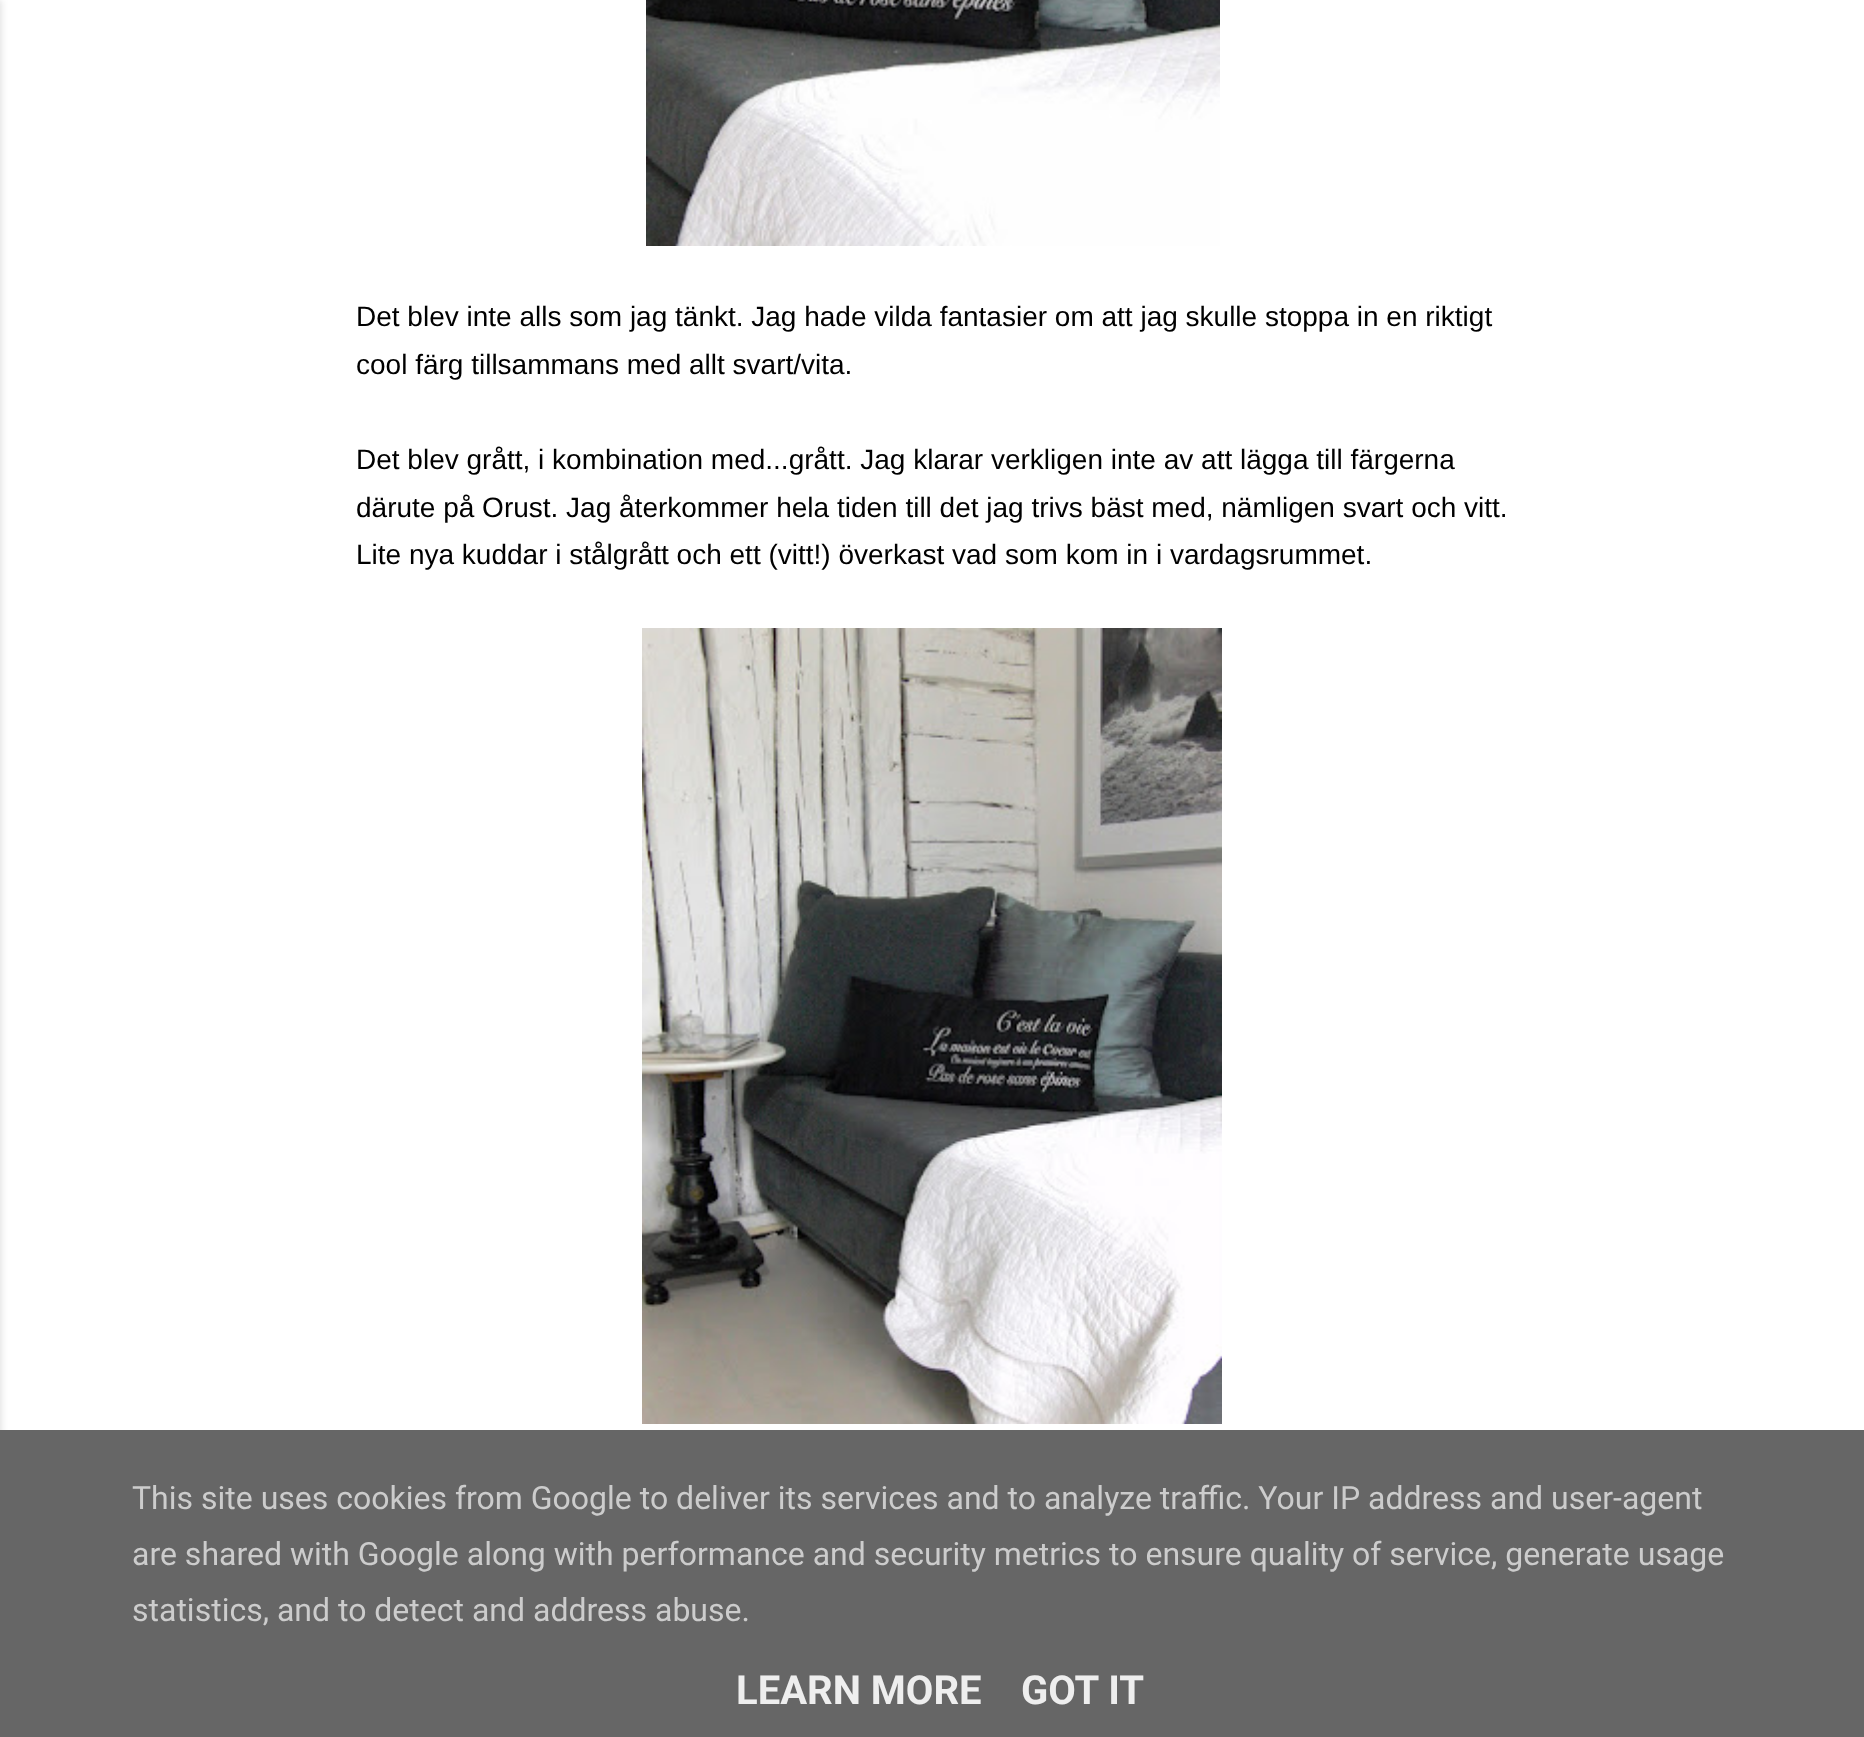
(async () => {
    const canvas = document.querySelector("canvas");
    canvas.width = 1864;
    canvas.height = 1737;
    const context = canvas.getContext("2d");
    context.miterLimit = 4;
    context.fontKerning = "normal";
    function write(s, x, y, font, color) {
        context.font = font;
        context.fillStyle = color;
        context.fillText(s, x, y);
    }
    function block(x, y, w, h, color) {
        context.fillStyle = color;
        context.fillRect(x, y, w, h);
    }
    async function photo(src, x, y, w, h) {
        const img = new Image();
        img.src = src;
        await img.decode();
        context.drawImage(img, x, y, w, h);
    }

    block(0, 0, 1864, 1737, "rgb(255, 255, 255)");
    context.fillStyle = "rgba(0, 0, 0, 0.1)";
    context.filter = "blur(3px)";
    context.beginPath();
    context.rect(-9, 0, 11, 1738);
    context.fill();
    context.filter = "none";
    await photo("media/1.png", 646, 0, 574, 246);
    write("Det blev inte alls som jag tänkt. Jag hade vilda fantasier om att jag skulle stoppa in en riktigt", 356, 326, "28px Arimo", "rgb(0, 0, 0)");
    write("cool färg tillsammans med allt svart/vita.", 356, 374, "28px Arimo", "rgb(0, 0, 0)");
    write("Det blev grått, i kombination med...grått. Jag klarar verkligen inte av att lägga till färgerna", 356, 469, "28px Arimo", "rgb(0, 0, 0)");
    write("därute på Orust. Jag återkommer hela tiden till det jag trivs bäst med, nämligen svart och vitt.", 356, 517, "28px Arimo", "rgb(0, 0, 0)");
    write("Lite nya kuddar i stålgrått och ett (vitt!) överkast vad som kom in i vardagsrummet.", 356, 564, "28px Arimo", "rgb(0, 0, 0)");
    await photo("media/2.png", 642, 628, 580, 796);
    block(0, 1430, 1864, 307, "rgb(102, 102, 102)");
    write("This site uses cookies from Google to deliver its services and to analyze traffic. Your IP address and user-agent", 132, 1509, "32px Roboto", "rgb(204, 204, 204)");
    write("are shared with Google along with performance and security metrics to ensure quality of service, generate usage", 132, 1565, "32px Roboto", "rgb(204, 204, 204)");
    write("statistics, and to detect and address abuse.", 132, 1621, "32px Roboto", "rgb(204, 204, 204)");
    write("LEARN MORE", 736, 1704, "bold 40px Roboto", "rgb(238, 238, 238)");
    write("GOT IT", 1021, 1704, "bold 40px Roboto", "rgb(238, 238, 238)");
})();
